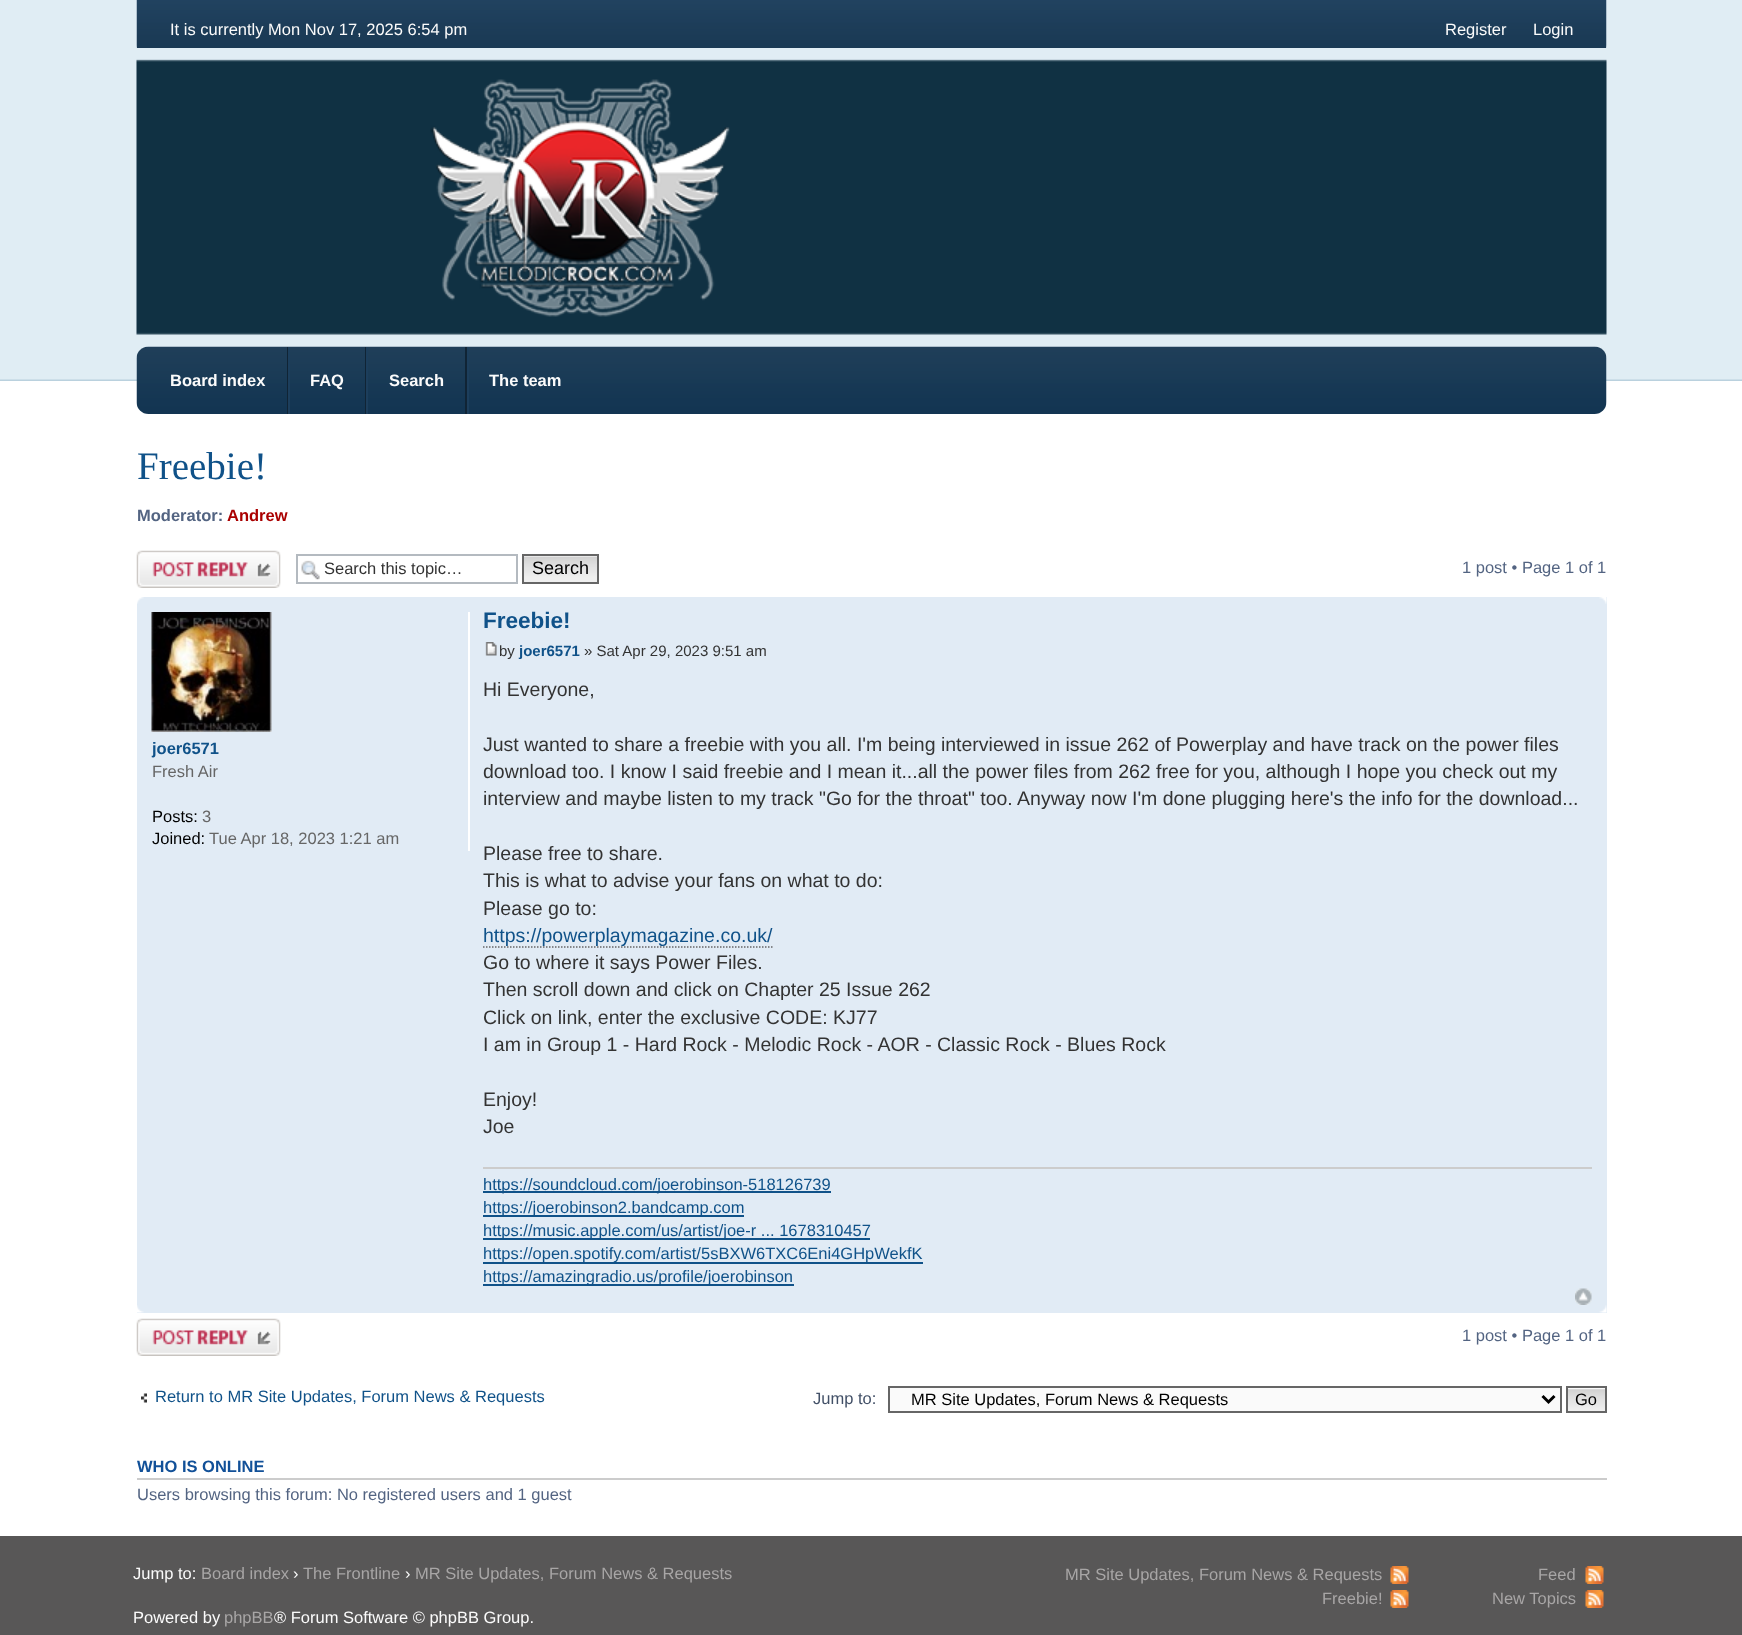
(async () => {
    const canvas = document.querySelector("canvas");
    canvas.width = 1742;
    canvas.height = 1635;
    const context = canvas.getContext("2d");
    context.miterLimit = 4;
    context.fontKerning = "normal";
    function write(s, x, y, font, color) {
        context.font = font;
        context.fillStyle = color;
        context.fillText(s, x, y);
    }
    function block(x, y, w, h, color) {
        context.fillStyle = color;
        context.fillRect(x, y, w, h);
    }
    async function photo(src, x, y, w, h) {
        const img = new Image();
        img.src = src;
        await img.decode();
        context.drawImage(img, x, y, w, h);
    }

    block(0, 0, 1742, 1635, "rgb(255, 255, 255)");
    await photo("media/1.png", 0, 0, 1742, 381);
    await photo("media/2.png", 136, 0, 1471, 48);
    write("It is currently Mon Nov 17, 2025 6:54 pm", 170, 35, "16.5px Liberation Sans", "rgb(251, 251, 251)");
    write("Register", 1445, 35, "16.5px Liberation Sans", "rgb(251, 251, 251)");
    write("Login", 1533, 35, "16.5px Liberation Sans", "rgb(251, 251, 251)");
    await photo("media/3.png", 136, 48, 1471, 287);
    await photo("media/4.png", 136, 346, 1471, 68);
    block(287, 347, 1, 67, "rgb(16, 36, 53)");
    write("Board index", 170, 386, "bold 16.5px Liberation Sans", "rgb(251, 251, 251)");
    block(365, 347, 1, 67, "rgb(16, 36, 53)");
    block(288, 347, 2, 67, "rgb(28, 62, 92)");
    write("FAQ", 310, 386, "bold 16.5px Liberation Sans", "rgb(251, 251, 251)");
    block(465, 347, 2, 67, "rgb(16, 36, 53)");
    block(366, 347, 2, 67, "rgb(28, 62, 92)");
    write("Search", 389, 386, "bold 16.5px Liberation Sans", "rgb(251, 251, 251)");
    block(467, 347, 2, 67, "rgb(28, 62, 92)");
    write("The team", 489, 386, "bold 16.5px Liberation Sans", "rgb(251, 251, 251)");
    write("Freebie!", 137, 479, "39px Liberation Serif", "rgb(16, 82, 137)");
    write("Moderator:", 137, 521, "bold 16.5px Liberation Sans", "rgb(83, 100, 130)");
    write("Andrew", 227, 521, "bold 16.5px Liberation Sans", "rgb(170, 0, 0)");
    await photo("media/5.png", 136, 550, 145, 38);
    await photo("media/6.png", 301, 560, 19, 20);
    context.strokeStyle = "rgb(180, 186, 192)";
    context.lineWidth = 2;
    context.strokeRect(297, 555, 220, 28);
    write("Search this topic…", 324, 574, "16.5px Liberation Sans", "rgb(51, 51, 51)");
    await photo("media/7.png", 524, 556, 73, 26);
    context.strokeStyle = "rgb(102, 102, 102)";
    context.strokeRect(523, 555, 75, 28);
    write("Search", 532, 574, "18px Liberation Sans", "rgb(0, 0, 0)");
    write("1 post • Page 1 of 1", 1462, 573, "16.5px Liberation Sans", "rgb(83, 100, 130)");
    block(137, 597, 1470, 716, "rgb(225, 235, 245)");
    await photo("media/8.png", 137, 597, 7, 7);
    await photo("media/9.png", 1599, 597, 8, 7);
    block(468, 612, 2, 239, "rgb(255, 255, 255)");
    await photo("media/10.png", 151, 612, 121, 120);
    write("joer6571", 152, 754, "bold 16.5px Liberation Sans", "rgb(16, 82, 137)");
    write("Fresh Air", 152, 777, "16.5px Liberation Sans", "rgb(102, 102, 102)");
    write("Posts:", 152, 822, "16.5px Liberation Sans", "rgb(0, 0, 0)");
    write("3", 202, 822, "16.5px Liberation Sans", "rgb(102, 102, 102)");
    write("Joined:", 152, 844, "16.5px Liberation Sans", "rgb(0, 0, 0)");
    write("Tue Apr 18, 2023 1:21 am", 209, 844, "16.5px Liberation Sans", "rgb(102, 102, 102)");
    write("Freebie!", 483, 628, "bold 22.5px Liberation Sans", "rgb(16, 82, 137)");
    await photo("media/11.png", 485, 642, 12, 14);
    write("by", 499, 656, "15px Liberation Sans", "rgb(51, 51, 51)");
    write("joer6571", 519, 656, "bold 15px Liberation Sans", "rgb(16, 82, 137)");
    write("» Sat Apr 29, 2023 9:51 am", 584, 656, "15px Liberation Sans", "rgb(51, 51, 51)");
    write("Hi Everyone,", 483, 696, "19.5px Liberation Sans", "rgb(51, 51, 51)");
    write("Just wanted to share a freebie with you all. I'm being interviewed in issue 262 of Powerplay and have track on the power files", 483, 751, "19.5px Liberation Sans", "rgb(51, 51, 51)");
    write("download too. I know I said freebie and I mean it...all the power files from 262 free for you, although I hope you check out my", 483, 778, "19.5px Liberation Sans", "rgb(51, 51, 51)");
    write("interview and maybe listen to my track \"Go for the throat\" too. Anyway now I'm done plugging here's the info for the download...", 483, 805, "19.5px Liberation Sans", "rgb(51, 51, 51)");
    write("Please free to share.", 483, 860, "19.5px Liberation Sans", "rgb(51, 51, 51)");
    write("This is what to advise your fans on what to do:", 483, 887, "19.5px Liberation Sans", "rgb(51, 51, 51)");
    write("Please go to:", 483, 915, "19.5px Liberation Sans", "rgb(51, 51, 51)");
    context.beginPath();
    context.moveTo(483, 947);
    context.lineTo(772.5, 947);
    context.lineWidth = 1.5;
    context.setLineDash([1.5, 1.5]);
    context.stroke();
    write("https://powerplaymagazine.co.uk/", 483, 942, "19.5px Liberation Sans", "rgb(16, 82, 137)");
    write("Go to where it says Power Files.", 483, 969, "19.5px Liberation Sans", "rgb(51, 51, 51)");
    write("Then scroll down and click on Chapter 25 Issue 262", 483, 996, "19.5px Liberation Sans", "rgb(51, 51, 51)");
    write("Click on link, enter the exclusive CODE: KJ77", 483, 1024, "19.5px Liberation Sans", "rgb(51, 51, 51)");
    write("I am in Group 1 - Hard Rock - Melodic Rock - AOR - Classic Rock - Blues Rock", 483, 1051, "19.5px Liberation Sans", "rgb(51, 51, 51)");
    write("Enjoy!", 483, 1106, "19.5px Liberation Sans", "rgb(51, 51, 51)");
    write("Joe", 483, 1133, "19.5px Liberation Sans", "rgb(51, 51, 51)");
    block(483, 1167, 1109, 2, "rgb(204, 204, 204)");
    block(483, 1191, 348, 2, "rgb(16, 82, 137)");
    write("https://soundcloud.com/joerobinson-518126739", 483, 1190, "16.5px Liberation Sans", "rgb(16, 82, 137)");
    block(483, 1215, 261, 2, "rgb(16, 82, 137)");
    write("https://joerobinson2.bandcamp.com", 483, 1213, "16.5px Liberation Sans", "rgb(16, 82, 137)");
    block(483, 1238, 387, 2, "rgb(16, 82, 137)");
    write("https://music.apple.com/us/artist/joe-r ... 1678310457", 483, 1236, "16.5px Liberation Sans", "rgb(16, 82, 137)");
    block(483, 1262, 440, 2, "rgb(16, 82, 137)");
    write("https://open.spotify.com/artist/5sBXW6TXC6Eni4GHpWekfK", 483, 1259, "16.5px Liberation Sans", "rgb(16, 82, 137)");
    block(483, 1284, 311, 2, "rgb(16, 82, 137)");
    write("https://amazingradio.us/profile/joerobinson", 483, 1282, "16.5px Liberation Sans", "rgb(16, 82, 137)");
    await photo("media/12.png", 1575, 1288, 17, 17);
    await photo("media/13.png", 137, 1305, 7, 8);
    await photo("media/14.png", 1599, 1305, 8, 8);
    await photo("media/15.png", 136, 1318, 145, 38);
    write("1 post • Page 1 of 1", 1462, 1341, "16.5px Liberation Sans", "rgb(83, 100, 130)");
    await photo("media/16.png", 141, 1393, 6, 10);
    write("Return to MR Site Updates, Forum News & Requests", 155, 1402, "16.5px Liberation Sans", "rgb(16, 82, 137)");
    write("Jump to:", 813, 1404, "16.5px Liberation Sans", "rgb(66, 80, 103)");
    context.fillStyle = "rgb(250, 250, 250)";
    context.beginPath();
    context.rect(889, 1387, 672, 25);
    context.fill();
    context.lineWidth = 2;
    context.setLineDash([]);
    context.stroke();
    context.beginPath();
    context.moveTo(1542.5, 1396);
    context.lineTo(1548.5, 1402);
    context.lineTo(1554.5, 1396);
    context.strokeStyle = "rgb(0, 0, 0)";
    context.lineWidth = 3;
    context.stroke();
    write("MR Site Updates, Forum News & Requests", 911, 1405, "16.5px Liberation Sans", "rgb(0, 0, 0)");
    block(1568, 1388, 37, 1, "rgb(250, 250, 250)");
    await photo("media/17.png", 1568, 1389, 37, 22);
    context.strokeStyle = "rgb(102, 102, 102)";
    context.lineWidth = 2;
    context.strokeRect(1567, 1387, 39, 25);
    write("Go", 1575, 1405, "16.5px Liberation Sans", "rgb(0, 0, 0)");
    block(137, 1478, 1470, 2, "rgb(204, 204, 204)");
    write("WHO IS ONLINE", 137, 1472, "bold 16.5px Liberation Sans", "rgb(17, 80, 152)");
    write("Users browsing this forum: No registered users and 1 guest", 137, 1500, "16.5px Liberation Sans", "rgb(83, 100, 130)");
    block(0, 1536, 1742, 99, "rgb(88, 87, 87)");
    write("Jump to:", 133, 1579, "16.5px Liberation Sans", "rgb(251, 251, 251)");
    write("Board index", 201, 1579, "16.5px Liberation Sans", "rgb(168, 166, 166)");
    write("›", 293, 1579, "16.5px Liberation Sans", "rgb(251, 251, 251)");
    write("The Frontline", 303, 1579, "16.5px Liberation Sans", "rgb(168, 166, 166)");
    write("›", 405, 1579, "16.5px Liberation Sans", "rgb(251, 251, 251)");
    write("MR Site Updates, Forum News & Requests", 415, 1579, "16.5px Liberation Sans", "rgb(168, 166, 166)");
    write("Powered by", 133, 1623, "16.5px Liberation Sans", "rgb(251, 251, 251)");
    write("phpBB", 224, 1623, "16.5px Liberation Sans", "rgb(168, 166, 166)");
    write("® Forum Software © phpBB Group.", 274, 1623, "16.5px Liberation Sans", "rgb(251, 251, 251)");
    await photo("media/18.png", 1390, 1566, 19, 18);
    write("MR Site Updates, Forum News & Requests", 1065, 1580, "16.5px Liberation Sans", "rgb(168, 166, 166)");
    await photo("media/18.png", 1390, 1590, 19, 18);
    write("Freebie!", 1322, 1604, "16.5px Liberation Sans", "rgb(168, 166, 166)");
    await photo("media/19.png", 1585, 1566, 19, 18);
    write("Feed", 1538, 1580, "16.5px Liberation Sans", "rgb(168, 166, 166)");
    await photo("media/19.png", 1585, 1590, 19, 18);
    write("New Topics", 1492, 1604, "16.5px Liberation Sans", "rgb(168, 166, 166)");
})();
